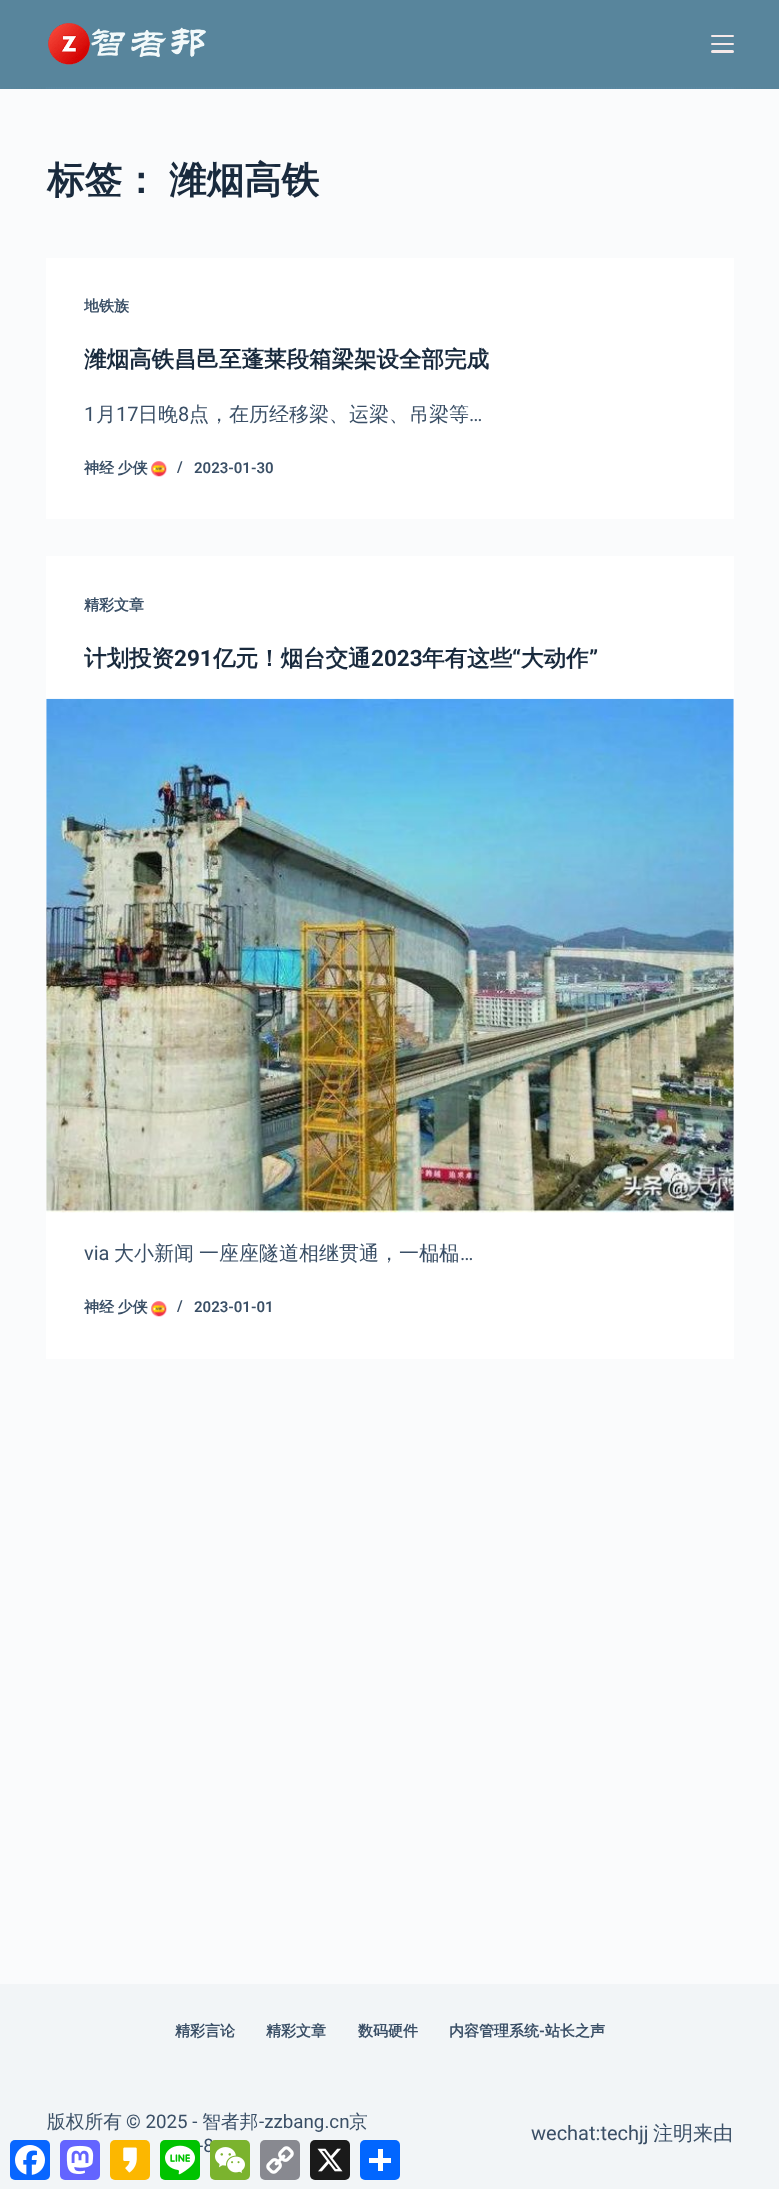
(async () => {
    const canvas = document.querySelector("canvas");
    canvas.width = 779;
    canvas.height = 2189;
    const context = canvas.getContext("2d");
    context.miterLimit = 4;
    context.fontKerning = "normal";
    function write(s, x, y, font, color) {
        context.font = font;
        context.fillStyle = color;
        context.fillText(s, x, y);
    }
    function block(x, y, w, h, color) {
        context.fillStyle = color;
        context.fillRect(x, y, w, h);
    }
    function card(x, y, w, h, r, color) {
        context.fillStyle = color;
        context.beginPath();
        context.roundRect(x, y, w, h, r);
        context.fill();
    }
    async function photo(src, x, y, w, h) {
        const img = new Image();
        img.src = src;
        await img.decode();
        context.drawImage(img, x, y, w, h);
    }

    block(0, 0, 779, 2189, "rgb(250, 251, 252)");
    block(0, 0, 779, 89, "rgb(88, 133, 156)");
    context.beginPath();
    context.moveTo(46, 88);
    context.lineTo(734, 88);
    context.strokeStyle = "rgb(95, 141, 170)";
    context.lineWidth = 1.2;
    context.setLineDash([1.25, 1.25]);
    context.stroke();
    await photo("media/1.png", 48, 23, 158, 42);
    card(711, 35, 23, 2, 1, "rgb(245, 233, 233)");
    card(711, 43, 23, 2, 1, "rgb(245, 233, 233)");
    card(711, 50, 23, 3, 1.5, "rgb(245, 233, 233)");
    write("标签：", 47, 193, "bold 37.5px WenQuanYi Zen Hei", "rgb(25, 42, 61)");
    write("潍烟高铁", 169, 193, "bold 37.5px WenQuanYi Zen Hei", "rgb(25, 42, 61)");
    block(46, 258, 688, 261, "rgb(255, 255, 255)");
    write("地铁族", 84, 311, "bold 15px WenQuanYi Zen Hei", "rgb(58, 79, 102)");
    write("潍烟高铁昌邑至蓬莱段箱梁架设全部完成", 84, 367, "bold 22.5px WenQuanYi Zen Hei", "rgb(25, 42, 61)");
    write("1", 84, 421, "20px Roboto", "rgb(58, 79, 102)");
    write("月", 96, 421, "500 20px WenQuanYi Zen Hei", "rgb(58, 79, 102)");
    write("17", 116, 421, "20px Roboto", "rgb(58, 79, 102)");
    write("日晚", 138, 421, "500 20px WenQuanYi Zen Hei", "rgb(58, 79, 102)");
    write("8", 178, 421, "20px Roboto", "rgb(58, 79, 102)");
    write("点，在历经移梁、运梁、吊梁等", 189, 421, "500 20px WenQuanYi Zen Hei", "rgb(58, 79, 102)");
    write("…", 469, 421, "20px Roboto", "rgb(58, 79, 102)");
    context.wordSpacing = "-1px";
    write("神经 少侠", 84, 473, "bold 15px WenQuanYi Zen Hei", "rgb(58, 79, 102)");
    await photo("media/2.png", 151, 461, 16, 16);
    context.wordSpacing = "0px";
    write("/", 177, 472, "600 15px Roboto", "rgb(58, 79, 102)");
    write("2023-01-30", 194, 473, "600 15px Roboto", "rgb(58, 79, 102)");
    block(46, 556, 688, 803, "rgb(255, 255, 255)");
    write("精彩文章", 84, 610, "bold 15px WenQuanYi Zen Hei", "rgb(58, 79, 102)");
    write("计划投资", 84, 666, "bold 22.5px WenQuanYi Zen Hei", "rgb(25, 42, 61)");
    write("291", 174, 666, "bold 22.5px Roboto", "rgb(25, 42, 61)");
    write("亿元！烟台交通", 213, 666, "bold 22.5px WenQuanYi Zen Hei", "rgb(25, 42, 61)");
    write("2023", 371, 666, "bold 22.5px Roboto", "rgb(25, 42, 61)");
    write("年有这些", 422, 666, "bold 22.5px WenQuanYi Zen Hei", "rgb(25, 42, 61)");
    write("“", 512, 666, "bold 22.5px Roboto", "rgb(25, 42, 61)");
    write("大动作", 521, 666, "bold 22.5px WenQuanYi Zen Hei", "rgb(25, 42, 61)");
    write("”", 589, 666, "bold 22.5px Roboto", "rgb(25, 42, 61)");
    await photo("media/3.png", 46, 698, 688, 515);
    write("via", 84, 1260, "20px Roboto", "rgb(58, 79, 102)");
    context.wordSpacing = "-1px";
    write("大小新闻 一座座隧道相继贯通，一榀榀", 114, 1260, "500 20px WenQuanYi Zen Hei", "rgb(58, 79, 102)");
    context.wordSpacing = "0px";
    write("…", 460, 1260, "20px Roboto", "rgb(58, 79, 102)");
    context.wordSpacing = "-1px";
    write("神经 少侠", 84, 1312, "bold 15px WenQuanYi Zen Hei", "rgb(58, 79, 102)");
    await photo("media/2.png", 151, 1301, 16, 16);
    context.wordSpacing = "0px";
    write("/", 177, 1311, "600 15px Roboto", "rgb(58, 79, 102)");
    write("2023-01-01", 194, 1312, "600 15px Roboto", "rgb(58, 79, 102)");
    block(0, 1984, 779, 205, "rgb(242, 245, 247)");
    write("精彩言论", 175, 2036, "bold 15px WenQuanYi Zen Hei", "rgb(58, 79, 102)");
    write("精彩文章", 266, 2036, "bold 15px WenQuanYi Zen Hei", "rgb(58, 79, 102)");
    write("数码硬件", 358, 2036, "bold 15px WenQuanYi Zen Hei", "rgb(58, 79, 102)");
    write("内容管理系统", 449, 2036, "bold 15px WenQuanYi Zen Hei", "rgb(58, 79, 102)");
    write("-", 539, 2036, "bold 15px Roboto", "rgb(58, 79, 102)");
    write("站长之声", 545, 2036, "bold 15px WenQuanYi Zen Hei", "rgb(58, 79, 102)");
    write("版权所有", 47, 2128, "500 18.75px WenQuanYi Zen Hei", "rgb(58, 79, 102)");
    write("© 2025 -", 126, 2128, "18.75px Roboto", "rgb(58, 79, 102)");
    write("智者邦", 202, 2128, "500 18.75px WenQuanYi Zen Hei", "rgb(58, 79, 102)");
    write("-zzbang.cn", 259, 2128, "18.75px Roboto", "rgb(58, 79, 102)");
    write("京", 349, 2128, "500 18.75px WenQuanYi Zen Hei", "rgb(58, 79, 102)");
    write("-8", 198, 2152, "18.75px Roboto", "rgb(58, 79, 102)");
    write("wechat:techjj", 531, 2140, "20px Roboto", "rgb(58, 79, 102)");
    write("注明来由", 653, 2140, "500 20px WenQuanYi Zen Hei", "rgb(58, 79, 102)");
    card(10, 2140, 40, 40, 5, "rgb(8, 102, 255)");
    await photo("media/4.png", 15, 2145, 30, 30);
    card(60, 2140, 40, 40, 5, "rgb(99, 100, 255)");
    await photo("media/5.png", 66, 2145, 28, 29);
    card(110, 2140, 40, 40, 5, "rgb(252, 183, 0)");
    await photo("media/6.png", 123, 2147, 14, 26);
    card(160, 2140, 40, 40, 5, "rgb(0, 195, 0)");
    await photo("media/7.png", 165, 2145, 30, 30);
    card(210, 2140, 40, 40, 5, "rgb(123, 179, 46)");
    await photo("media/8.png", 215, 2147, 30, 26);
    card(260, 2140, 40, 40, 5, "rgb(136, 137, 144)");
    await photo("media/9.png", 266, 2146, 28, 28);
    card(310, 2140, 40, 40, 5, "rgb(26, 26, 26)");
    await photo("media/10.png", 317, 2148, 26, 24);
    card(360, 2140, 40, 40, 5, "rgb(1, 102, 255)");
    block(378, 2149, 5, 22, "rgb(255, 255, 255)");
    block(369, 2158, 22, 5, "rgb(255, 255, 255)");
})();
